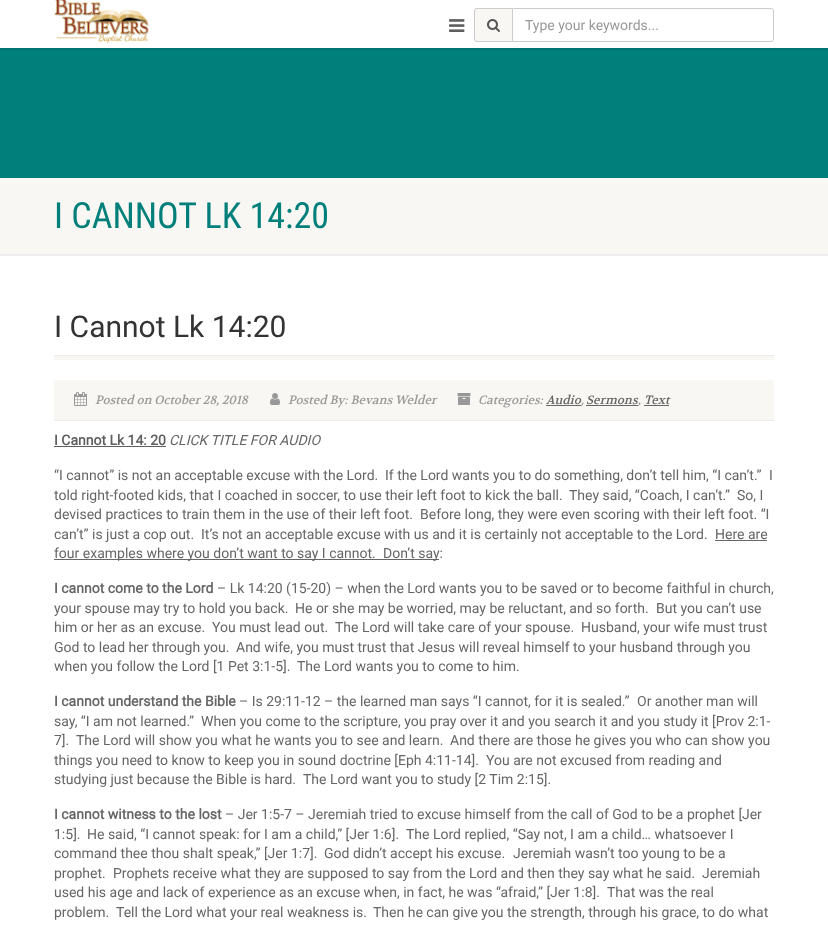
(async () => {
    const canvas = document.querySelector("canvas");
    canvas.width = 828;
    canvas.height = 929;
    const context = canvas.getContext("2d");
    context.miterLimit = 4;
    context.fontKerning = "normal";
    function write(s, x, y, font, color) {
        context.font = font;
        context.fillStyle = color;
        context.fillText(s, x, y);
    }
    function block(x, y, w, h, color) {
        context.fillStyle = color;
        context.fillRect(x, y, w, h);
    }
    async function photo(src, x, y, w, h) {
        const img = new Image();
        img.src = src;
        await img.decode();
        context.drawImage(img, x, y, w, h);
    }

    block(0, 0, 828, 929, "rgb(255, 255, 255)");
    block(0, 48, 828, 2, "rgb(0, 114, 111)");
    await photo("media/1.png", 54, 0, 95, 43);
    await photo("media/2.png", 449, 19, 16, 13);
    context.fillStyle = "rgb(248, 247, 243)";
    context.beginPath();
    context.roundRect(474, 8, 38, 34, [3, 0, 0, 3]);
    context.fill();
    context.fillStyle = "rgb(204, 204, 204)";
    context.beginPath();
    context.moveTo(477, 8);
    context.lineTo(512, 8);
    context.lineTo(512, 42);
    context.lineTo(477, 42);
    context.bezierCurveTo(475.5, 42, 474, 40.5, 474, 39);
    context.lineTo(474, 11);
    context.bezierCurveTo(474, 9.5, 475.5, 8, 477, 8);
    context.closePath();
    context.moveTo(477, 9);
    context.lineTo(512, 9);
    context.lineTo(512, 41);
    context.lineTo(477, 41);
    context.bezierCurveTo(476, 41, 475, 40, 475, 39);
    context.lineTo(475, 11);
    context.bezierCurveTo(475, 10, 476, 9, 477, 9);
    context.closePath();
    context.fill("evenodd");
    await photo("media/3.png", 487, 19, 13, 13);
    context.beginPath();
    context.roundRect(512.5, 8.5, 261, 33, [0, 2.5, 2.5, 0]);
    context.strokeStyle = "rgb(204, 204, 204)";
    context.stroke();
    write("Type your keywords...", 525, 30, "14px Roboto", "rgb(153, 153, 153)");
    block(0, 50, 828, 128, "rgb(0, 127, 123)");
    block(0, 254, 828, 2, "rgb(237, 237, 237)");
    block(0, 178, 828, 76, "rgb(248, 247, 243)");
    write("I CANNOT LK 14:20", 54, 228, "36px Roboto Condensed", "rgb(0, 127, 123)");
    block(54, 355, 720, 1, "rgb(236, 234, 228)");
    write("I Cannot Lk 14:20", 54, 337, "30px Roboto", "rgb(51, 51, 51)");
    block(54, 356, 720, 4, "rgb(248, 247, 243)");
    block(54, 380, 720, 40, "rgb(248, 247, 243)");
    block(54, 420, 720, 1, "rgb(236, 234, 228)");
    await photo("media/4.png", 74, 392, 13, 14);
    write("Posted on October 28, 2018", 95, 404, "italic 12px Volkhov", "rgb(153, 153, 153)");
    await photo("media/5.png", 270, 393, 10, 12);
    write("Posted By: Bevans Welder", 288, 404, "italic 12px Volkhov", "rgb(153, 153, 153)");
    await photo("media/6.png", 457, 393, 14, 12);
    write("Categories:", 478, 404, "italic 12px Volkhov", "rgb(153, 153, 153)");
    write("Audio", 546, 404, "italic 12px Volkhov", "rgb(102, 102, 102)");
    block(546, 405, 35, 1, "rgb(102, 102, 102)");
    write(",", 581, 404, "italic 12px Volkhov", "rgb(153, 153, 153)");
    write("Sermons", 586, 404, "italic 12px Volkhov", "rgb(102, 102, 102)");
    block(586, 405, 52, 1, "rgb(102, 102, 102)");
    write("Text", 644, 404, "italic 12px Volkhov", "rgb(102, 102, 102)");
    block(644, 405, 25, 1, "rgb(102, 102, 102)");
    write(",", 638, 404, "italic 12px Volkhov", "rgb(153, 153, 153)");
    write("I Cannot Lk 14: 20", 54, 445, "bold 14px Roboto", "rgb(94, 94, 94)");
    block(54, 446, 112, 1, "rgb(94, 94, 94)");
    write("CLICK TITLE FOR AUDIO", 169, 445, "italic 14px Roboto", "rgb(102, 102, 102)");
    write("“I cannot” is not an acceptable excuse with the Lord.", 54, 480, "14px Roboto", "rgb(102, 102, 102)");
    write("If the Lord wants you to do something, don’t tell him, “I can’t.”", 385, 480, "14px Roboto", "rgb(102, 102, 102)");
    write("I", 769, 480, "14px Roboto", "rgb(102, 102, 102)");
    write("told right-footed kids, that I coached in soccer, to use their left foot to kick the ball.", 54, 500, "14px Roboto", "rgb(102, 102, 102)");
    write("They said, “Coach, I can’t.”", 569, 500, "14px Roboto", "rgb(102, 102, 102)");
    write("So, I", 737, 500, "14px Roboto", "rgb(102, 102, 102)");
    write("devised practices to train them in the use of their left foot.", 54, 519, "14px Roboto", "rgb(102, 102, 102)");
    write("Before long, they were even scoring with their left foot. “I", 420, 519, "14px Roboto", "rgb(102, 102, 102)");
    write("can’t” is just a cop out.", 54, 539, "14px Roboto", "rgb(102, 102, 102)");
    write("It’s not an acceptable excuse with us and it is certainly not acceptable to the Lord.", 201, 539, "14px Roboto", "rgb(102, 102, 102)");
    write("Here are", 715, 539, "14px Roboto", "rgb(102, 102, 102)");
    block(715, 540, 52, 1, "rgb(102, 102, 102)");
    block(54, 559, 385, 1, "rgb(102, 102, 102)");
    write("four examples where you don’t want to say I cannot.", 54, 558, "14px Roboto", "rgb(102, 102, 102)");
    write("Don’t say:", 383, 558, "14px Roboto", "rgb(102, 102, 102)");
    write("I cannot come to the Lord", 54, 593, "bold 14px Roboto", "rgb(102, 102, 102)");
    write("– Lk 14:20 (15-20) – when the Lord wants you to be saved or to become faithful in church,", 217, 593, "14px Roboto", "rgb(102, 102, 102)");
    write("your spouse may try to hold you back.", 54, 613, "14px Roboto", "rgb(102, 102, 102)");
    write("He or she may be worried, may be reluctant, and so forth.", 295, 613, "14px Roboto", "rgb(102, 102, 102)");
    write("But you can’t use", 656, 613, "14px Roboto", "rgb(102, 102, 102)");
    write("him or her as an excuse.", 54, 632, "14px Roboto", "rgb(102, 102, 102)");
    write("You must lead out.", 212, 632, "14px Roboto", "rgb(102, 102, 102)");
    write("The Lord will take care of your spouse.", 335, 632, "14px Roboto", "rgb(102, 102, 102)");
    write("Husband, your wife must trust", 581, 632, "14px Roboto", "rgb(102, 102, 102)");
    write("God to lead her through you.", 54, 652, "14px Roboto", "rgb(102, 102, 102)");
    write("And wife, you must trust that Jesus will reveal himself to your husband through you", 236, 652, "14px Roboto", "rgb(102, 102, 102)");
    write("when you follow the Lord [1 Pet 3:1-5].", 54, 671, "14px Roboto", "rgb(102, 102, 102)");
    write("The Lord wants you to come to him.", 297, 671, "14px Roboto", "rgb(102, 102, 102)");
    write("I cannot understand the Bible", 54, 706, "bold 14px Roboto", "rgb(102, 102, 102)");
    write("– Is 29:11-12 – the learned man says “I cannot, for it is sealed.”", 239, 706, "14px Roboto", "rgb(102, 102, 102)");
    write("Or another man will", 637, 706, "14px Roboto", "rgb(102, 102, 102)");
    write("say, “I am not learned.”", 54, 726, "14px Roboto", "rgb(102, 102, 102)");
    write("When you come to the scripture, you pray over it and you search it and you study it [Prov 2:1-", 201, 726, "14px Roboto", "rgb(102, 102, 102)");
    write("7].", 54, 745, "14px Roboto", "rgb(102, 102, 102)");
    write("The Lord will show you what he wants you to see and learn.", 76, 745, "14px Roboto", "rgb(102, 102, 102)");
    write("And there are those he gives you who can show you", 450, 745, "14px Roboto", "rgb(102, 102, 102)");
    write("things you need to know to keep you in sound doctrine [Eph 4:11-14].", 54, 765, "14px Roboto", "rgb(102, 102, 102)");
    write("You are not excused from reading and", 486, 765, "14px Roboto", "rgb(102, 102, 102)");
    write("studying just because the Bible is hard.", 54, 784, "14px Roboto", "rgb(102, 102, 102)");
    write("The Lord want you to study [2 Tim 2:15].", 303, 784, "14px Roboto", "rgb(102, 102, 102)");
    write("I cannot witness to the lost", 54, 819, "bold 14px Roboto", "rgb(102, 102, 102)");
    write("– Jer 1:5-7 – Jeremiah tried to excuse himself from the call of God to be a prophet [Jer", 225, 819, "14px Roboto", "rgb(102, 102, 102)");
    write("1:5].", 54, 839, "14px Roboto", "rgb(102, 102, 102)");
    write("He said, “I cannot speak: for I am a child,” [Jer 1:6].", 87, 839, "14px Roboto", "rgb(102, 102, 102)");
    write("The Lord replied, “Say not, I am a child… whatsoever I", 406, 839, "14px Roboto", "rgb(102, 102, 102)");
    write("command thee thou shalt speak,” [Jer 1:7].", 54, 858, "14px Roboto", "rgb(102, 102, 102)");
    write("God didn’t accept his excuse.", 324, 858, "14px Roboto", "rgb(102, 102, 102)");
    write("Jeremiah wasn’t too young to be a", 513, 858, "14px Roboto", "rgb(102, 102, 102)");
    write("prophet.", 54, 878, "14px Roboto", "rgb(102, 102, 102)");
    write("Prophets receive what they are supposed to say from the Lord and then they say what he said.", 113, 878, "14px Roboto", "rgb(102, 102, 102)");
    write("Jeremiah", 702, 878, "14px Roboto", "rgb(102, 102, 102)");
    write("used his age and lack of experience as an excuse when, in fact, he was “afraid,” [Jer 1:8].", 54, 897, "14px Roboto", "rgb(102, 102, 102)");
    write("That was the real", 607, 897, "14px Roboto", "rgb(102, 102, 102)");
    write("problem.", 54, 917, "14px Roboto", "rgb(102, 102, 102)");
    write("Tell the Lord what your real weakness is.", 116, 917, "14px Roboto", "rgb(102, 102, 102)");
    write("Then he can give you the strength, through his grace, to do what", 373, 917, "14px Roboto", "rgb(102, 102, 102)");
})();
